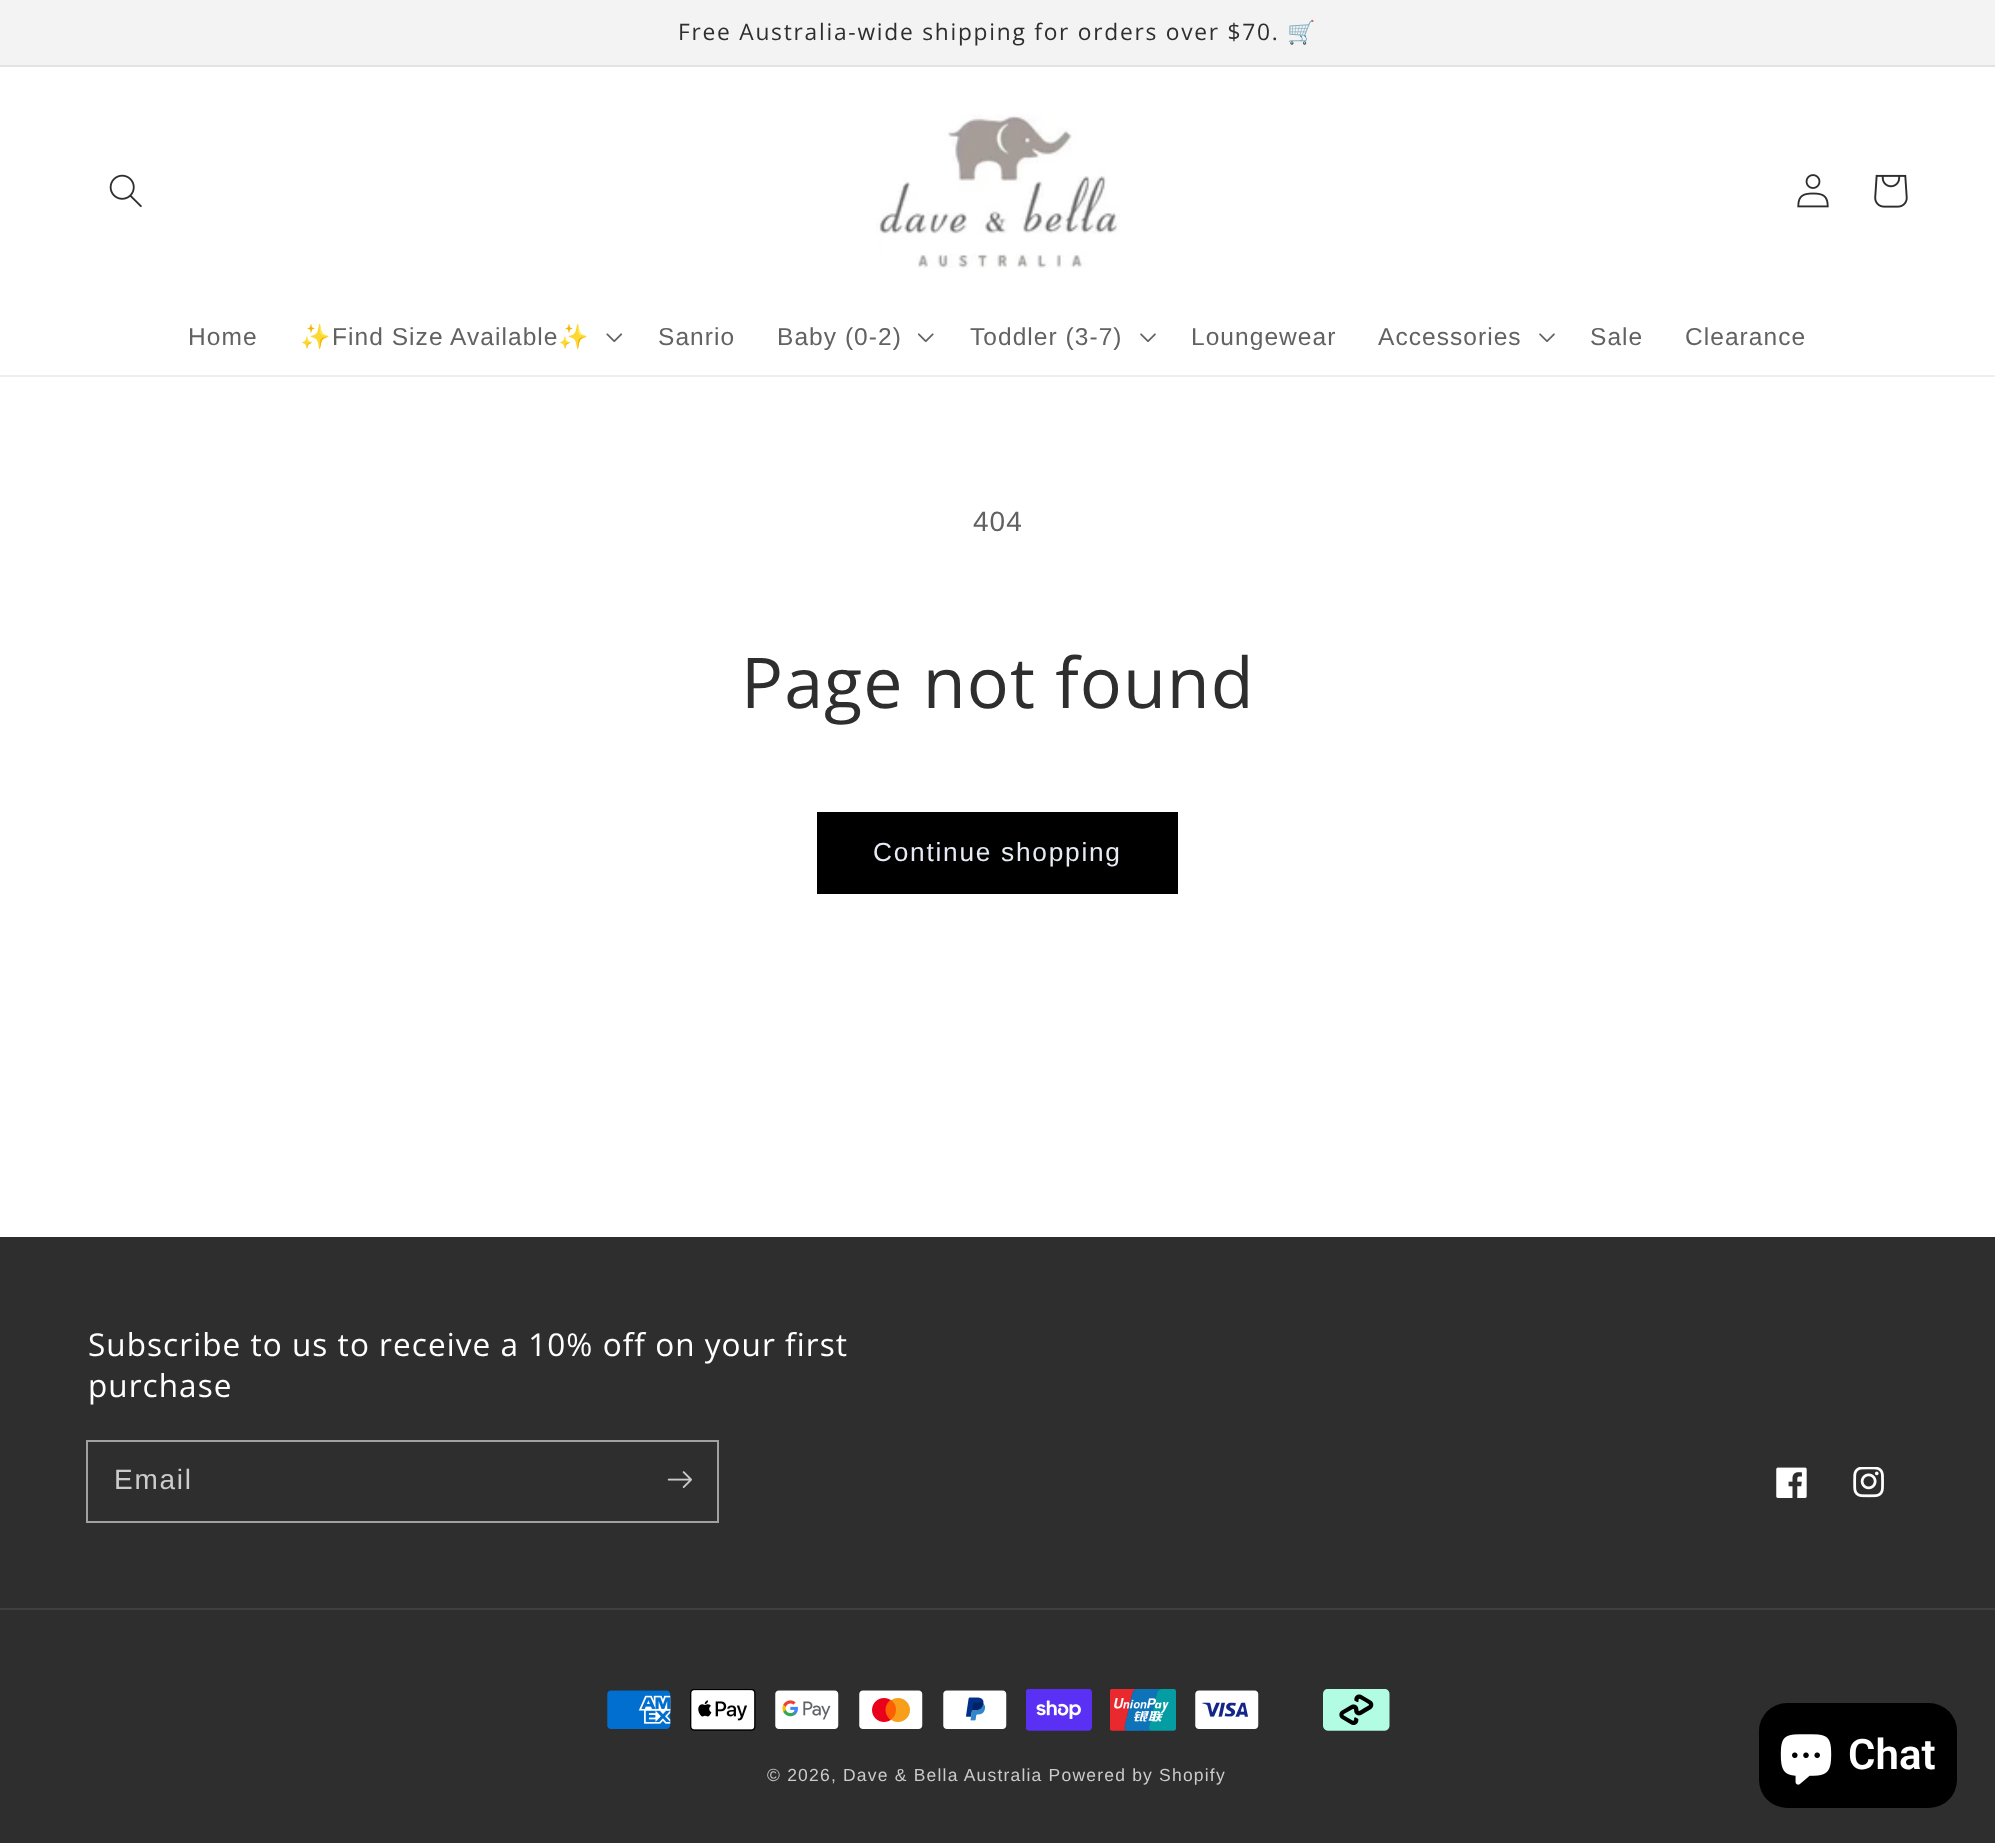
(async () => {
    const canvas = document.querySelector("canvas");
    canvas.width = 1995;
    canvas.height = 1843;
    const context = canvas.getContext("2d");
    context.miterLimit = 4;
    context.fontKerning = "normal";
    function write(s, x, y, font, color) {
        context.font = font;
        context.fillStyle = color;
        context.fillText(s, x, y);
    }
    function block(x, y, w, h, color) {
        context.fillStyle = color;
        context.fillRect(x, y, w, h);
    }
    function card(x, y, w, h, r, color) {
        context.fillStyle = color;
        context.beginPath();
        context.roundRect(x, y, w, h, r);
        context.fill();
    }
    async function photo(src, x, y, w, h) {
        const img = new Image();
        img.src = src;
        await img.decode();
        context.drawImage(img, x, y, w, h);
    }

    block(0, 0, 1995, 1843, "rgb(255, 255, 255)");
    block(0, 0, 1995, 65, "rgb(243, 243, 243)");
    block(0, 65, 1995, 2, "rgb(227, 227, 227)");
    context.letterSpacing = "1.75px";
    write("Free Australia-wide shipping for orders over $70.", 678, 40, "22.75px Open Sans", "rgb(46, 46, 46)");
    write("🛒", 1287, 40, "22.75px Noto Color Emoji", "rgb(46, 46, 46)");
    block(0, 375, 1995, 2, "rgb(238, 238, 238)");
    await photo("media/1.png", 109, 174, 33, 34);
    await photo("media/2.png", 876, 114, 244, 154);
    await photo("media/3.png", 1797, 174, 32, 34);
    await photo("media/4.png", 1874, 174, 34, 34);
    context.letterSpacing = "1.05px";
    write("Home", 188, 345, "24.5px Liberation Sans", "rgb(98, 98, 98)");
    write("✨", 300, 345, "24.5px Noto Color Emoji", "rgb(98, 98, 98)");
    write("Find Size Available", 332, 345, "24.5px Liberation Sans", "rgb(98, 98, 98)");
    write("✨", 558, 345, "24.5px Noto Color Emoji", "rgb(98, 98, 98)");
    await photo("media/5.png", 606, 333, 17, 10);
    write("Sanrio", 658, 345, "24.5px Liberation Sans", "rgb(98, 98, 98)");
    write("Baby (0-2)", 777, 345, "24.5px Liberation Sans", "rgb(98, 98, 98)");
    await photo("media/6.png", 917, 333, 17, 10);
    write("Toddler (3-7)", 970, 345, "24.5px Liberation Sans", "rgb(98, 98, 98)");
    await photo("media/7.png", 1140, 333, 16, 9);
    write("Loungewear", 1191, 345, "24.5px Liberation Sans", "rgb(98, 98, 98)");
    write("Accessories", 1378, 345, "24.5px Liberation Sans", "rgb(98, 98, 98)");
    await photo("media/7.png", 1539, 333, 16, 9);
    write("Sale", 1590, 345, "24.5px Liberation Sans", "rgb(98, 98, 98)");
    write("Clearance", 1685, 345, "24.5px Liberation Sans", "rgb(98, 98, 98)");
    write("404", 973, 531, "28px Liberation Sans", "rgb(98, 98, 98)");
    write("Page not found", 741, 708, "70px Open Sans", "rgb(46, 46, 46)");
    context.strokeStyle = "rgb(0, 0, 0)";
    context.lineWidth = 2;
    context.strokeRect(818, 813, 359, 80);
    block(819, 814, 357, 78, "rgb(0, 0, 0)");
    context.letterSpacing = "1.75px";
    write("Continue shopping", 873, 861, "26.25px Liberation Sans", "rgb(230, 235, 245)");
    block(0, 1237, 1995, 606, "rgb(46, 46, 46)");
    context.letterSpacing = "1.05px";
    write("Subscribe to us to receive a 10% off on your first", 88, 1356, "31.5px Open Sans", "rgb(255, 255, 255)");
    write("purchase", 88, 1397, "31.5px Open Sans", "rgb(255, 255, 255)");
    context.strokeStyle = "rgb(161, 161, 161)";
    context.strokeRect(87, 1441, 631, 81);
    context.letterSpacing = "1.75px";
    write("Email", 114, 1489, "28px Liberation Sans", "rgb(203, 203, 203)");
    await photo("media/8.png", 667, 1471, 25, 17);
    await photo("media/9.png", 1776, 1467, 31, 31);
    await photo("media/10.png", 1853, 1467, 31, 31);
    block(0, 1608, 1995, 2, "rgb(63, 63, 63)");
    await photo("media/11.png", 607, 1690, 64, 39);
    await photo("media/12.png", 690, 1689, 66, 42);
    await photo("media/13.png", 775, 1690, 64, 39);
    await photo("media/14.png", 859, 1690, 64, 39);
    await photo("media/15.png", 943, 1690, 64, 39);
    await photo("media/16.png", 1026, 1689, 66, 42);
    await photo("media/17.png", 1110, 1689, 66, 42);
    await photo("media/18.png", 1195, 1690, 64, 39);
    await photo("media/19.png", 1323, 1689, 67, 42);
    context.letterSpacing = "1.2px";
    write("© 2026, Dave & Bella Australia Powered by Shopify", 767, 1781, "17.5px Liberation Sans", "rgb(203, 203, 203)");
    card(1759, 1703, 198, 105, 28, "rgb(0, 0, 0)");
    await photo("media/20.png", 1780, 1734, 52, 51);
    context.letterSpacing = "0px";
    write("Chat", 1848, 1769, "600 42px Roboto", "rgb(255, 255, 255)");
})();
